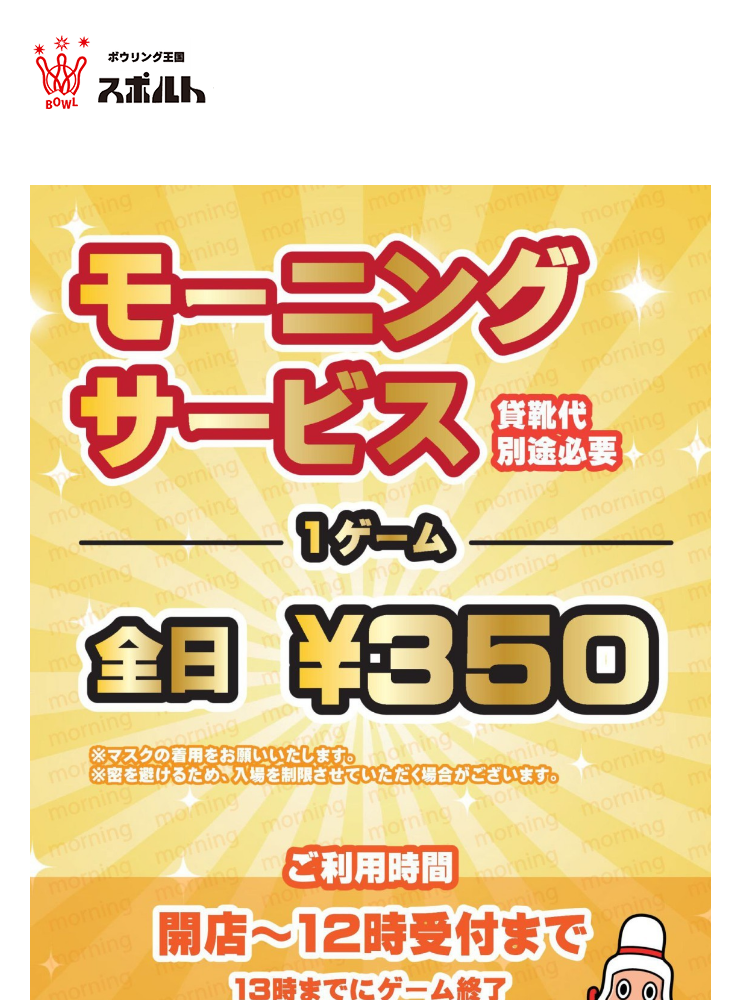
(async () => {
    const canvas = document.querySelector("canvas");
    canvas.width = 741;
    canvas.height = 1000;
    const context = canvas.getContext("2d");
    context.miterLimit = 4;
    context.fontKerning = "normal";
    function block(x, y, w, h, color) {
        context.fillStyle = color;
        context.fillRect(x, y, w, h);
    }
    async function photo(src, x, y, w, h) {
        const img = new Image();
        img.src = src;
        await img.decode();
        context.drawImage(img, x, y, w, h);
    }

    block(0, 0, 741, 1000, "rgb(255, 255, 255)");
    await photo("media/1.png", 33, 35, 181, 74);
    await photo("media/2.png", 30, 185, 681, 815);
})();
